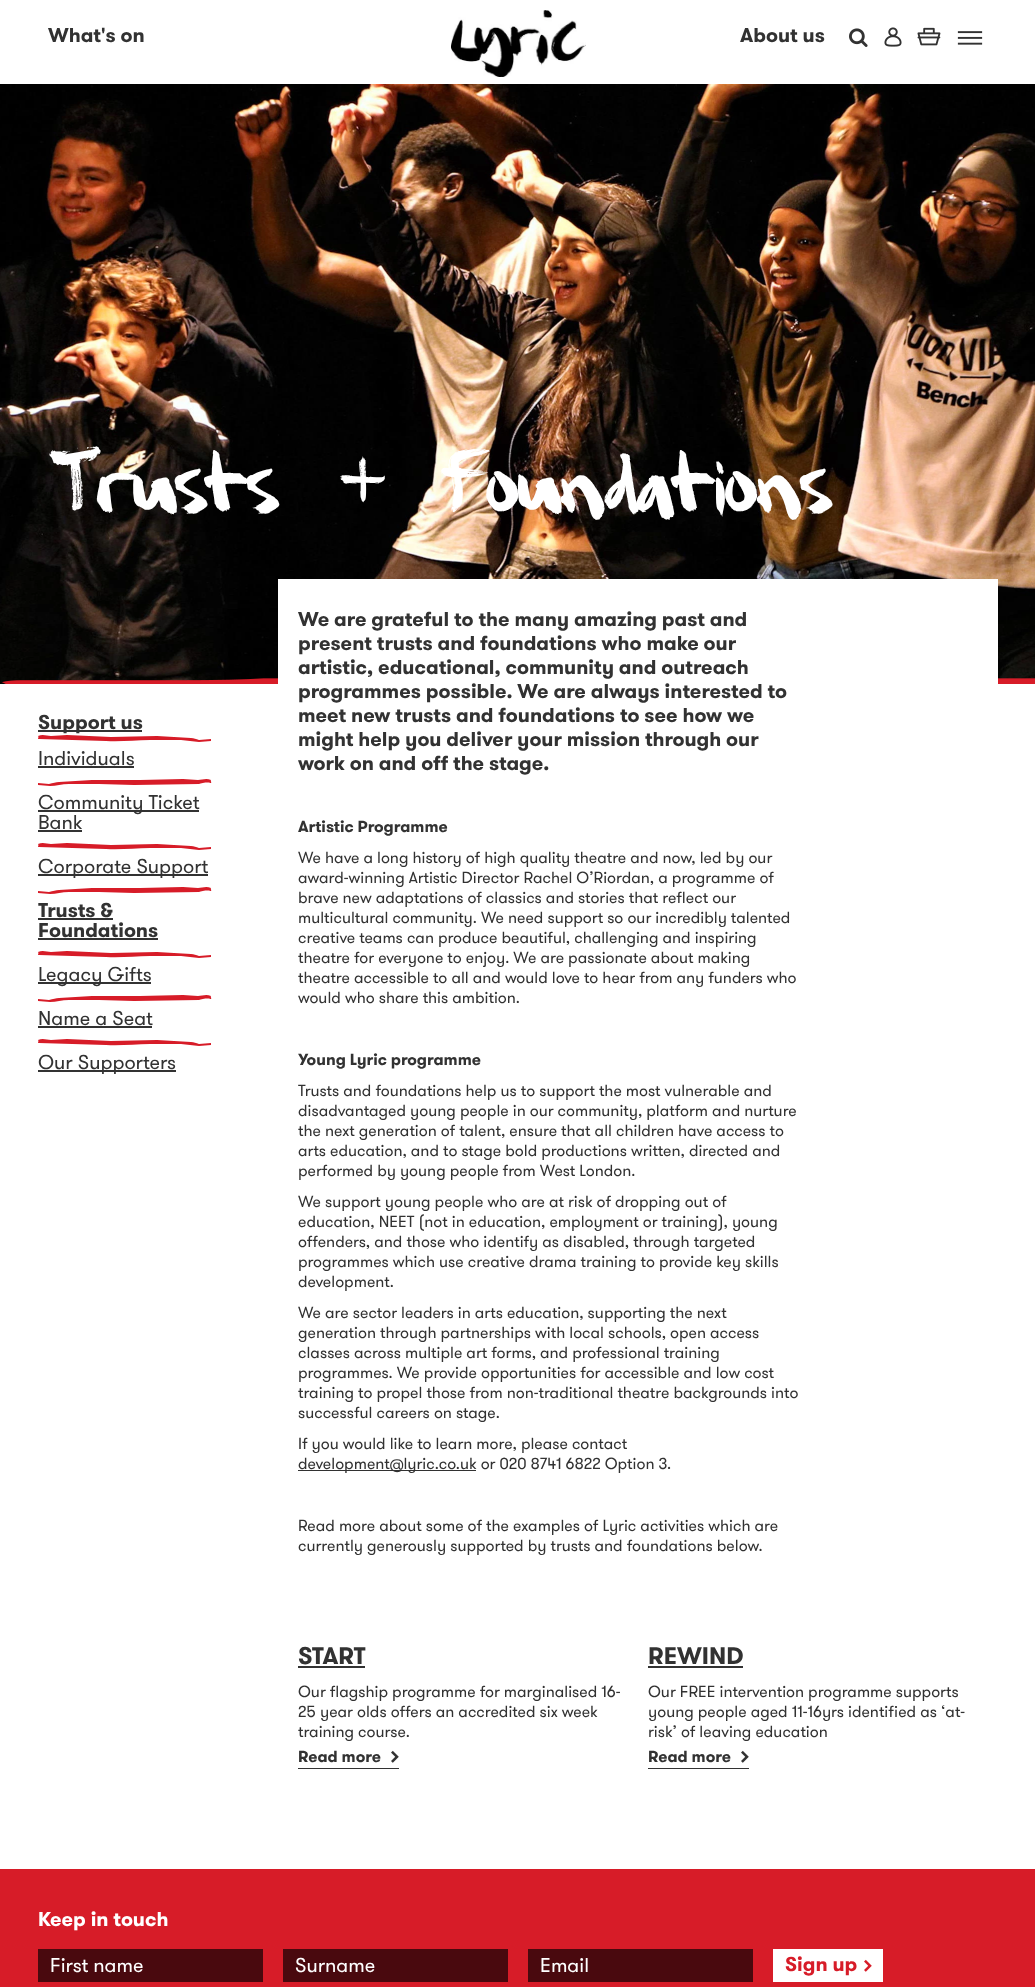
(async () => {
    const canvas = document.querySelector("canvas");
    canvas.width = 1035;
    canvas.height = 1987;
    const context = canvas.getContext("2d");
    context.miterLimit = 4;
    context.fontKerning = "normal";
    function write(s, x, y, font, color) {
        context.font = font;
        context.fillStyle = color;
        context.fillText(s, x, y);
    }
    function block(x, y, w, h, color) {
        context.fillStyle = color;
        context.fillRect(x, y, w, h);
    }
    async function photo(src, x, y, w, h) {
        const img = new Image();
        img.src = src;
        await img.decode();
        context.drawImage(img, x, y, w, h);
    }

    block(0, 0, 1035, 1987, "rgb(255, 255, 255)");
    await photo("media/1.png", 451, 10, 135, 67);
    write("What's on", 48, 42, "bold 20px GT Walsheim", "rgb(50, 50, 50)");
    write("About us", 740, 42, "bold 20px GT Walsheim", "rgb(50, 50, 50)");
    await photo("media/2.png", 849, 28, 19, 19);
    await photo("media/3.png", 884, 27, 18, 20);
    await photo("media/4.png", 917, 27, 24, 19);
    await photo("media/5.png", 957, 31, 26, 14);
    await photo("media/6.png", 0, 84, 1035, 600);
    await photo("media/7.png", 2, 678, 1033, 6);
    write("Trusts & Foundations", 58, 512, "80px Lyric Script", "rgb(255, 255, 255)");
    block(38, 730, 104, 2, "rgb(50, 50, 50)");
    write("Support us", 38, 729, "bold 20px GT Walsheim", "rgb(50, 50, 50)");
    context.fillStyle = "rgb(215, 28, 40)";
    context.beginPath();
    context.moveTo(211, 739);
    context.lineTo(211, 741);
    context.lineTo(199, 742);
    context.lineTo(181, 740);
    context.lineTo(150, 740);
    context.bezierCurveTo(135, 740, 121, 742, 106, 741);
    context.lineTo(39, 739);
    context.lineTo(38, 739);
    context.bezierCurveTo(38, 738, 39, 737, 38, 736);
    context.bezierCurveTo(43, 734, 47, 736, 51, 736);
    context.lineTo(67, 735);
    context.lineTo(111, 737);
    context.lineTo(157, 736);
    context.lineTo(191, 738);
    context.bezierCurveTo(194, 738, 196, 739, 199, 740);
    context.closePath();
    context.fill();
    write("Individuals", 38, 765, "20px GT Walsheim", "rgb(50, 50, 50)");
    block(38, 766, 96, 2, "rgb(50, 50, 50)");
    context.fillStyle = "rgb(215, 28, 40)";
    context.beginPath();
    context.moveTo(38, 783);
    context.lineTo(38, 785);
    context.lineTo(50, 786);
    context.bezierCurveTo(56, 786, 62, 784, 69, 784);
    context.lineTo(99, 784);
    context.lineTo(134, 785);
    context.lineTo(199, 784);
    context.bezierCurveTo(201, 783, 209, 782, 210, 783);
    context.lineTo(211, 783);
    context.bezierCurveTo(212, 782, 210, 781, 211, 780);
    context.bezierCurveTo(206, 778, 202, 780, 198, 780);
    context.lineTo(183, 779);
    context.lineTo(140, 780);
    context.lineTo(92, 780);
    context.lineTo(59, 782);
    context.bezierCurveTo(56, 782, 53, 783, 49, 784);
    context.closePath();
    context.fill();
    block(38, 810, 161, 2, "rgb(50, 50, 50)");
    write("Community Ticket", 38, 809, "20px GT Walsheim", "rgb(50, 50, 50)");
    write("Bank", 38, 829, "20px GT Walsheim", "rgb(50, 50, 50)");
    block(38, 830, 44, 2, "rgb(50, 50, 50)");
    context.fillStyle = "rgb(215, 28, 40)";
    context.beginPath();
    context.moveTo(211, 847);
    context.lineTo(211, 849);
    context.lineTo(199, 850);
    context.lineTo(181, 848);
    context.lineTo(150, 848);
    context.bezierCurveTo(135, 848, 121, 850, 106, 849);
    context.lineTo(39, 847);
    context.lineTo(38, 847);
    context.bezierCurveTo(38, 846, 39, 845, 38, 844);
    context.bezierCurveTo(43, 842, 47, 844, 51, 844);
    context.lineTo(67, 843);
    context.lineTo(111, 845);
    context.lineTo(157, 844);
    context.lineTo(191, 846);
    context.bezierCurveTo(194, 846, 196, 847, 199, 848);
    context.closePath();
    context.fill();
    block(38, 874, 170, 2, "rgb(50, 50, 50)");
    write("Corporate Support", 38, 873, "20px GT Walsheim", "rgb(50, 50, 50)");
    context.fillStyle = "rgb(215, 28, 40)";
    context.beginPath();
    context.moveTo(38, 891);
    context.lineTo(38, 893);
    context.lineTo(50, 894);
    context.bezierCurveTo(56, 894, 62, 892, 69, 892);
    context.lineTo(99, 892);
    context.lineTo(134, 893);
    context.lineTo(199, 892);
    context.bezierCurveTo(201, 891, 209, 890, 210, 891);
    context.lineTo(211, 891);
    context.bezierCurveTo(212, 890, 210, 889, 211, 888);
    context.bezierCurveTo(206, 886, 202, 888, 198, 888);
    context.lineTo(183, 887);
    context.lineTo(140, 888);
    context.lineTo(92, 888);
    context.lineTo(59, 890);
    context.bezierCurveTo(56, 890, 53, 891, 49, 892);
    context.closePath();
    context.fill();
    write("Trusts &", 38, 917, "bold 20px GT Walsheim", "rgb(50, 50, 50)");
    block(38, 918, 75, 2, "rgb(50, 50, 50)");
    write("Foundations", 38, 937, "bold 20px GT Walsheim", "rgb(50, 50, 50)");
    block(38, 938, 120, 2, "rgb(50, 50, 50)");
    context.fillStyle = "rgb(215, 28, 40)";
    context.beginPath();
    context.moveTo(211, 955);
    context.lineTo(211, 957);
    context.lineTo(199, 958);
    context.lineTo(181, 956);
    context.lineTo(150, 956);
    context.bezierCurveTo(135, 956, 121, 958, 106, 957);
    context.lineTo(39, 955);
    context.lineTo(38, 955);
    context.bezierCurveTo(38, 954, 39, 953, 38, 952);
    context.bezierCurveTo(43, 950, 47, 952, 51, 952);
    context.lineTo(67, 951);
    context.lineTo(111, 953);
    context.lineTo(157, 952);
    context.lineTo(191, 954);
    context.bezierCurveTo(194, 954, 196, 955, 199, 956);
    context.closePath();
    context.fill();
    block(38, 982, 113, 2, "rgb(50, 50, 50)");
    write("Legacy Gifts", 38, 981, "20px GT Walsheim", "rgb(50, 50, 50)");
    context.fillStyle = "rgb(215, 28, 40)";
    context.beginPath();
    context.moveTo(38, 999);
    context.lineTo(38, 1001);
    context.lineTo(50, 1002);
    context.bezierCurveTo(56, 1002, 62, 1000, 69, 1000);
    context.lineTo(99, 1000);
    context.lineTo(134, 1001);
    context.lineTo(199, 1000);
    context.bezierCurveTo(201, 999, 209, 998, 210, 999);
    context.lineTo(211, 999);
    context.bezierCurveTo(212, 998, 210, 997, 211, 996);
    context.bezierCurveTo(206, 994, 202, 996, 198, 996);
    context.lineTo(183, 995);
    context.lineTo(140, 996);
    context.lineTo(92, 996);
    context.lineTo(59, 998);
    context.bezierCurveTo(56, 998, 53, 999, 49, 1000);
    context.closePath();
    context.fill();
    write("Name a Seat", 38, 1025, "20px GT Walsheim", "rgb(50, 50, 50)");
    block(38, 1026, 114, 2, "rgb(50, 50, 50)");
    context.fillStyle = "rgb(215, 28, 40)";
    context.beginPath();
    context.moveTo(211, 1043);
    context.lineTo(211, 1045);
    context.lineTo(199, 1046);
    context.lineTo(181, 1044);
    context.lineTo(150, 1044);
    context.bezierCurveTo(135, 1044, 121, 1046, 106, 1045);
    context.lineTo(39, 1043);
    context.lineTo(38, 1043);
    context.bezierCurveTo(38, 1042, 39, 1041, 38, 1040);
    context.bezierCurveTo(43, 1038, 47, 1040, 51, 1040);
    context.lineTo(67, 1039);
    context.lineTo(111, 1041);
    context.lineTo(157, 1040);
    context.lineTo(191, 1042);
    context.bezierCurveTo(194, 1042, 196, 1043, 199, 1044);
    context.closePath();
    context.fill();
    block(38, 1070, 138, 2, "rgb(50, 50, 50)");
    write("Our Supporters", 38, 1069, "20px GT Walsheim", "rgb(50, 50, 50)");
    block(278, 579, 720, 105, "rgb(255, 255, 255)");
    write("We are grateful to the many amazing past and", 298, 626, "bold 20px GT Walsheim", "rgb(50, 50, 50)");
    write("present trusts and foundations who make our", 298, 650, "bold 20px GT Walsheim", "rgb(50, 50, 50)");
    write("artistic, educational, community and outreach", 298, 674, "bold 20px GT Walsheim", "rgb(50, 50, 50)");
    write("programmes possible. We are always interested to", 298, 698, "bold 20px GT Walsheim", "rgb(50, 50, 50)");
    write("meet new trusts and foundations to see how we", 298, 722, "bold 20px GT Walsheim", "rgb(50, 50, 50)");
    write("might help you deliver your mission through our", 298, 746, "bold 20px GT Walsheim", "rgb(50, 50, 50)");
    write("work on and off the stage.", 298, 770, "bold 20px GT Walsheim", "rgb(50, 50, 50)");
    write("Artistic Programme", 298, 832, "bold 16px GT Walsheim", "rgb(50, 50, 50)");
    write("We have a long history of high quality theatre and now, led by our", 298, 863, "16px GT Walsheim", "rgb(50, 50, 50)");
    write("award-winning Artistic Director Rachel O’Riordan, a programme of", 298, 883, "16px GT Walsheim", "rgb(50, 50, 50)");
    write("brave new adaptations of classics and stories that reflect our", 298, 903, "16px GT Walsheim", "rgb(50, 50, 50)");
    write("multicultural community. We need support so our incredibly talented", 298, 923, "16px GT Walsheim", "rgb(50, 50, 50)");
    write("creative teams can produce beautiful, challenging and inspiring", 298, 943, "16px GT Walsheim", "rgb(50, 50, 50)");
    write("theatre for everyone to enjoy. We are passionate about making", 298, 963, "16px GT Walsheim", "rgb(50, 50, 50)");
    write("theatre accessible to all and would love to hear from any funders who", 298, 983, "16px GT Walsheim", "rgb(50, 50, 50)");
    write("would who share this ambition.", 298, 1003, "16px GT Walsheim", "rgb(50, 50, 50)");
    write("Young Lyric programme", 298, 1065, "bold 16px GT Walsheim", "rgb(50, 50, 50)");
    write("Trusts and foundations help us to support the most vulnerable and", 298, 1096, "16px GT Walsheim", "rgb(50, 50, 50)");
    write("disadvantaged young people in our community, platform and nurture", 298, 1116, "16px GT Walsheim", "rgb(50, 50, 50)");
    write("the next generation of talent, ensure that all children have access to", 298, 1136, "16px GT Walsheim", "rgb(50, 50, 50)");
    write("arts education, and to stage bold productions written, directed and", 298, 1156, "16px GT Walsheim", "rgb(50, 50, 50)");
    write("performed by young people from West London.", 298, 1176, "16px GT Walsheim", "rgb(50, 50, 50)");
    write("We support young people who are at risk of dropping out of", 298, 1207, "16px GT Walsheim", "rgb(50, 50, 50)");
    write("education, NEET (not in education, employment or training), young", 298, 1227, "16px GT Walsheim", "rgb(50, 50, 50)");
    write("offenders, and those who identify as disabled, through targeted", 298, 1247, "16px GT Walsheim", "rgb(50, 50, 50)");
    write("programmes which use creative drama training to provide key skills", 298, 1267, "16px GT Walsheim", "rgb(50, 50, 50)");
    write("development.", 298, 1287, "16px GT Walsheim", "rgb(50, 50, 50)");
    write("We are sector leaders in arts education, supporting the next", 298, 1318, "16px GT Walsheim", "rgb(50, 50, 50)");
    write("generation through partnerships with local schools, open access", 298, 1338, "16px GT Walsheim", "rgb(50, 50, 50)");
    write("classes across multiple art forms, and professional training", 298, 1358, "16px GT Walsheim", "rgb(50, 50, 50)");
    write("programmes. We provide opportunities for accessible and low cost", 298, 1378, "16px GT Walsheim", "rgb(50, 50, 50)");
    write("training to propel those from non-traditional theatre backgrounds into", 298, 1398, "16px GT Walsheim", "rgb(50, 50, 50)");
    write("successful careers on stage.", 298, 1418, "16px GT Walsheim", "rgb(50, 50, 50)");
    write("If you would like to learn more, please contact", 298, 1449, "16px GT Walsheim", "rgb(50, 50, 50)");
    block(298, 1470, 178, 1, "rgb(50, 50, 50)");
    write("development@lyric.co.uk or 020 8741 6822 Option 3.", 298, 1469, "16px GT Walsheim", "rgb(50, 50, 50)");
    write("Read more about some of the examples of Lyric activities which are", 298, 1531, "16px GT Walsheim", "rgb(50, 50, 50)");
    write("currently generously supported by trusts and foundations below.", 298, 1551, "16px GT Walsheim", "rgb(50, 50, 50)");
    write("START", 298, 1664, "bold 24px GT Walsheim", "rgb(50, 50, 50)");
    block(298, 1666, 67, 2, "rgb(50, 50, 50)");
    write("Our flagship programme for marginalised 16-", 298, 1697, "16px GT Walsheim", "rgb(50, 50, 50)");
    write("25 year olds offers an accredited six week", 298, 1717, "16px GT Walsheim", "rgb(50, 50, 50)");
    write("training course.", 298, 1737, "16px GT Walsheim", "rgb(50, 50, 50)");
    block(298, 1768, 101, 1, "rgb(50, 50, 50)");
    write("Read more", 298, 1762, "bold 16px GT Walsheim", "rgb(50, 50, 50)");
    await photo("media/8.png", 391, 1750, 8, 13);
    write("REWIND", 648, 1664, "bold 24px GT Walsheim", "rgb(50, 50, 50)");
    block(648, 1666, 95, 2, "rgb(50, 50, 50)");
    write("Our FREE intervention programme supports", 648, 1697, "16px GT Walsheim", "rgb(50, 50, 50)");
    write("young people aged 11-16yrs identified as ‘at-", 648, 1717, "16px GT Walsheim", "rgb(50, 50, 50)");
    write("risk’ of leaving education", 648, 1737, "16px GT Walsheim", "rgb(50, 50, 50)");
    block(648, 1768, 101, 1, "rgb(50, 50, 50)");
    write("Read more", 648, 1762, "bold 16px GT Walsheim", "rgb(50, 50, 50)");
    await photo("media/8.png", 741, 1750, 8, 13);
    block(0, 1869, 1035, 118, "rgb(215, 28, 40)");
    write("Keep in touch", 38, 1926, "bold 20px GT Walsheim", "rgb(255, 255, 255)");
    block(38, 1949, 225, 33, "rgb(73, 9, 14)");
    write("First name", 50, 1972, "20px GT Walsheim", "rgb(255, 255, 255)");
    block(283, 1949, 225, 33, "rgb(73, 9, 14)");
    write("Surname", 295, 1972, "20px GT Walsheim", "rgb(255, 255, 255)");
    block(528, 1949, 225, 33, "rgb(73, 9, 14)");
    write("Email", 540, 1972, "20px GT Walsheim", "rgb(255, 255, 255)");
    block(773, 1949, 110, 33, "rgb(255, 255, 255)");
    write("Sign up", 785, 1971, "bold 20px GT Walsheim", "rgb(215, 28, 40)");
    await photo("media/9.png", 864, 1959, 8, 13);
})();
